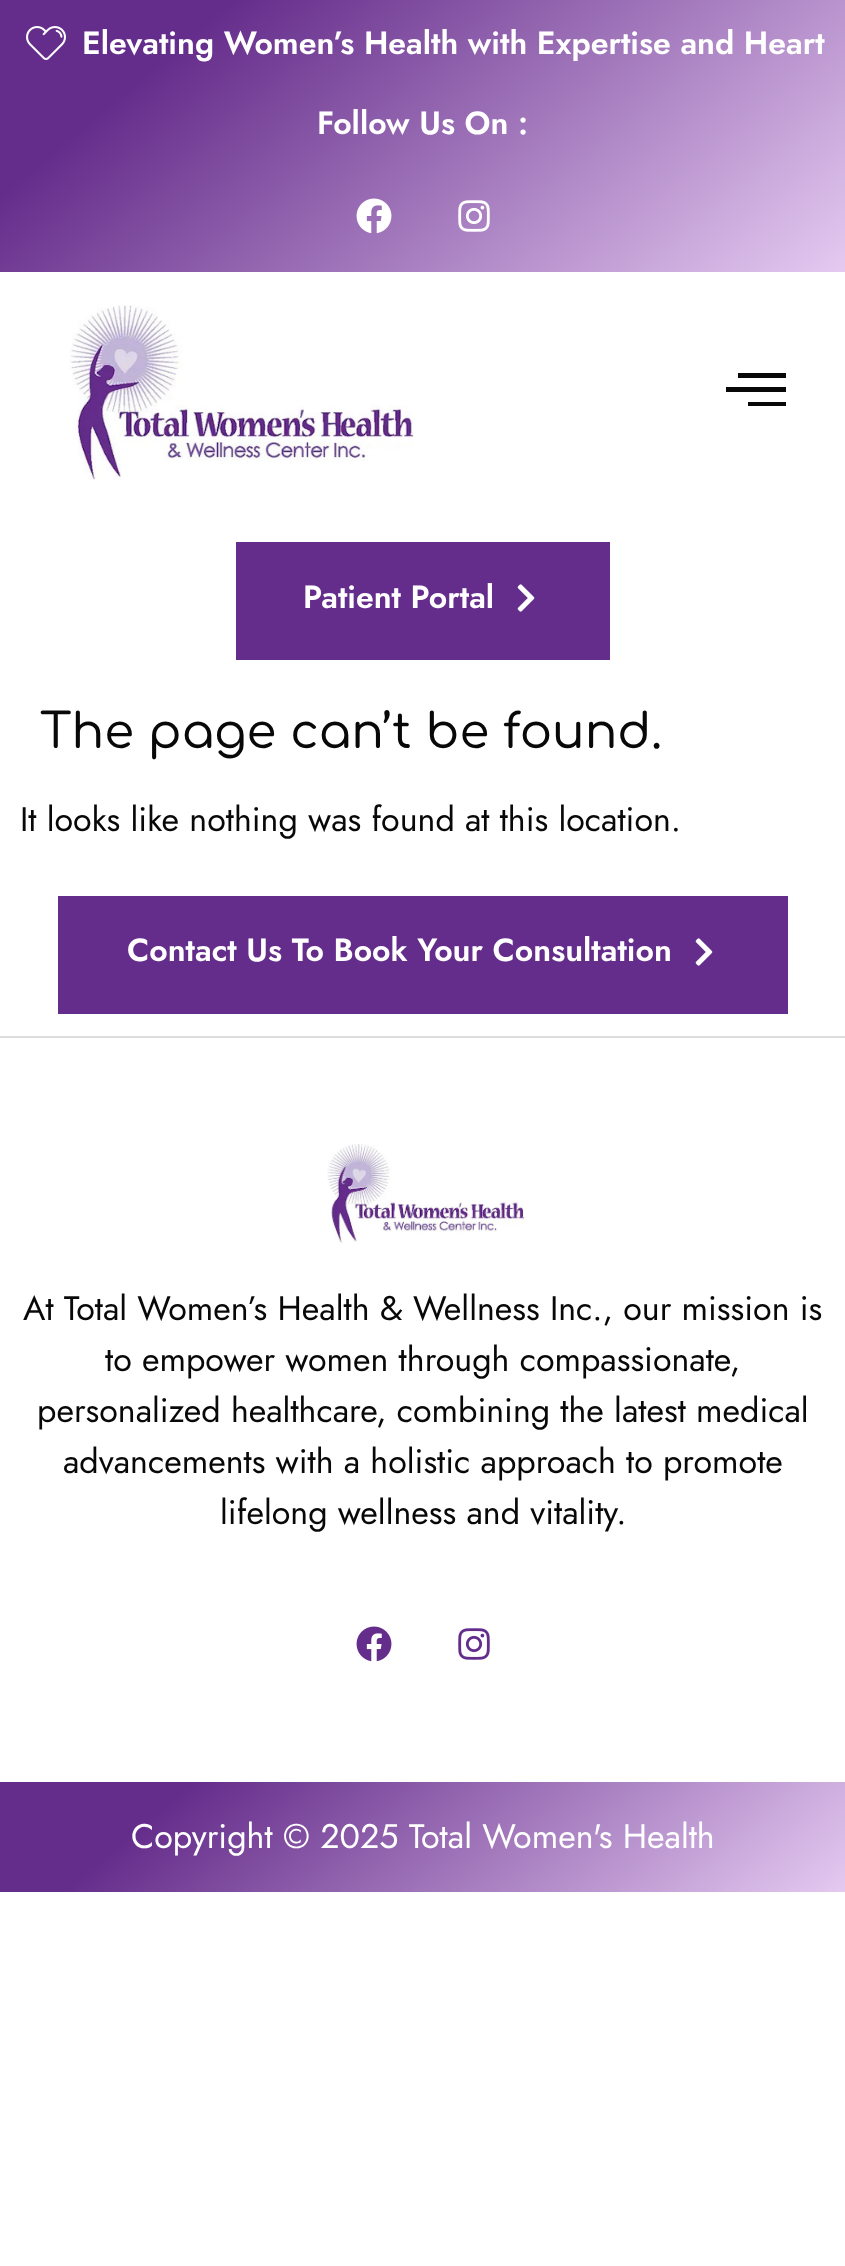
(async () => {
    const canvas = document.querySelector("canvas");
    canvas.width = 845;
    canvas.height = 2266;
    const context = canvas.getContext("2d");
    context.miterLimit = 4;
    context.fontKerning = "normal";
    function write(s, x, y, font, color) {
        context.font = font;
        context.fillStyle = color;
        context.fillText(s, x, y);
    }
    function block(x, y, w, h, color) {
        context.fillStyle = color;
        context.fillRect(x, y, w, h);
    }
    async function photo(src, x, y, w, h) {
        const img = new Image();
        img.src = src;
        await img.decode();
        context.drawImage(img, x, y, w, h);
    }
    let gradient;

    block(0, 0, 845, 2266, "rgb(255, 255, 255)");
    gradient = context.createLinearGradient(181, -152, 665, 424);
    gradient.addColorStop(0.2, "rgb(101, 45, 139)");
    gradient.addColorStop(1, "rgb(229, 202, 241)");
    context.fillStyle = gradient;
    context.fillRect(0, 0, 845, 272);
    await photo("media/1.png", 26, 26, 40, 34);
    write("Elevating Women’s Health with Expertise and Heart", 82, 54, "600 32px Jost", "rgb(255, 255, 255)");
    write("Follow Us On :", 317, 134, "600 32px Jost", "rgb(255, 255, 255)");
    await photo("media/2.png", 356, 198, 36, 36);
    await photo("media/3.png", 458, 200, 32, 32);
    await photo("media/4.png", 69, 305, 345, 175);
    context.fillStyle = "rgb(8, 8, 8)";
    context.beginPath();
    context.moveTo(726, 392);
    context.lineTo(786, 392);
    context.lineTo(786, 387);
    context.lineTo(726, 387);
    context.closePath();
    context.moveTo(748, 406);
    context.lineTo(786, 406);
    context.lineTo(786, 402);
    context.lineTo(748, 402);
    context.closePath();
    context.moveTo(738, 373);
    context.lineTo(738, 378);
    context.lineTo(786, 378);
    context.lineTo(786, 373);
    context.closePath();
    context.fill();
    block(236, 542, 374, 118, "rgb(101, 45, 139)");
    write("Patient Portal", 303, 608, "600 32px Jost", "rgb(255, 255, 255)");
    await photo("media/5.png", 517, 584, 18, 28);
    write("The page can’t be found.", 40, 748, "500 48px Comfortaa", "rgb(8, 8, 8)");
    write("It looks like nothing was found at this location.", 20, 831, "34px Jost", "rgb(8, 8, 8)");
    block(58, 896, 730, 118, "rgb(101, 45, 139)");
    write("Contact Us To Book Your Consultation", 127, 961, "600 32px Jost", "rgb(255, 255, 255)");
    await photo("media/5.png", 695, 938, 18, 28);
    block(0, 1036, 845, 2, "rgb(221, 221, 221)");
    await photo("media/6.png", 327, 1144, 198, 99);
    write("At Total Women’s Health & Wellness Inc., our mission is", 23, 1320, "34px Jost", "rgb(8, 8, 8)");
    write("to empower women through compassionate,", 105, 1371, "34px Jost", "rgb(8, 8, 8)");
    write("personalized healthcare, combining the latest medical", 37, 1422, "34px Jost", "rgb(8, 8, 8)");
    write("advancements with a holistic approach to promote", 63, 1473, "34px Jost", "rgb(8, 8, 8)");
    write("lifelong wellness and vitality.", 220, 1524, "34px Jost", "rgb(8, 8, 8)");
    await photo("media/7.png", 356, 1626, 36, 36);
    await photo("media/8.png", 458, 1628, 32, 32);
    gradient = context.createLinearGradient(221, 1596, 625, 2078);
    gradient.addColorStop(0.2, "rgb(101, 45, 139)");
    gradient.addColorStop(1, "rgb(229, 202, 241)");
    context.fillStyle = gradient;
    context.fillRect(0, 1782, 845, 110);
    write("Copyright © 2025 Total Women's Health", 131, 1848, "34px Jost", "rgb(255, 255, 255)");
})();
